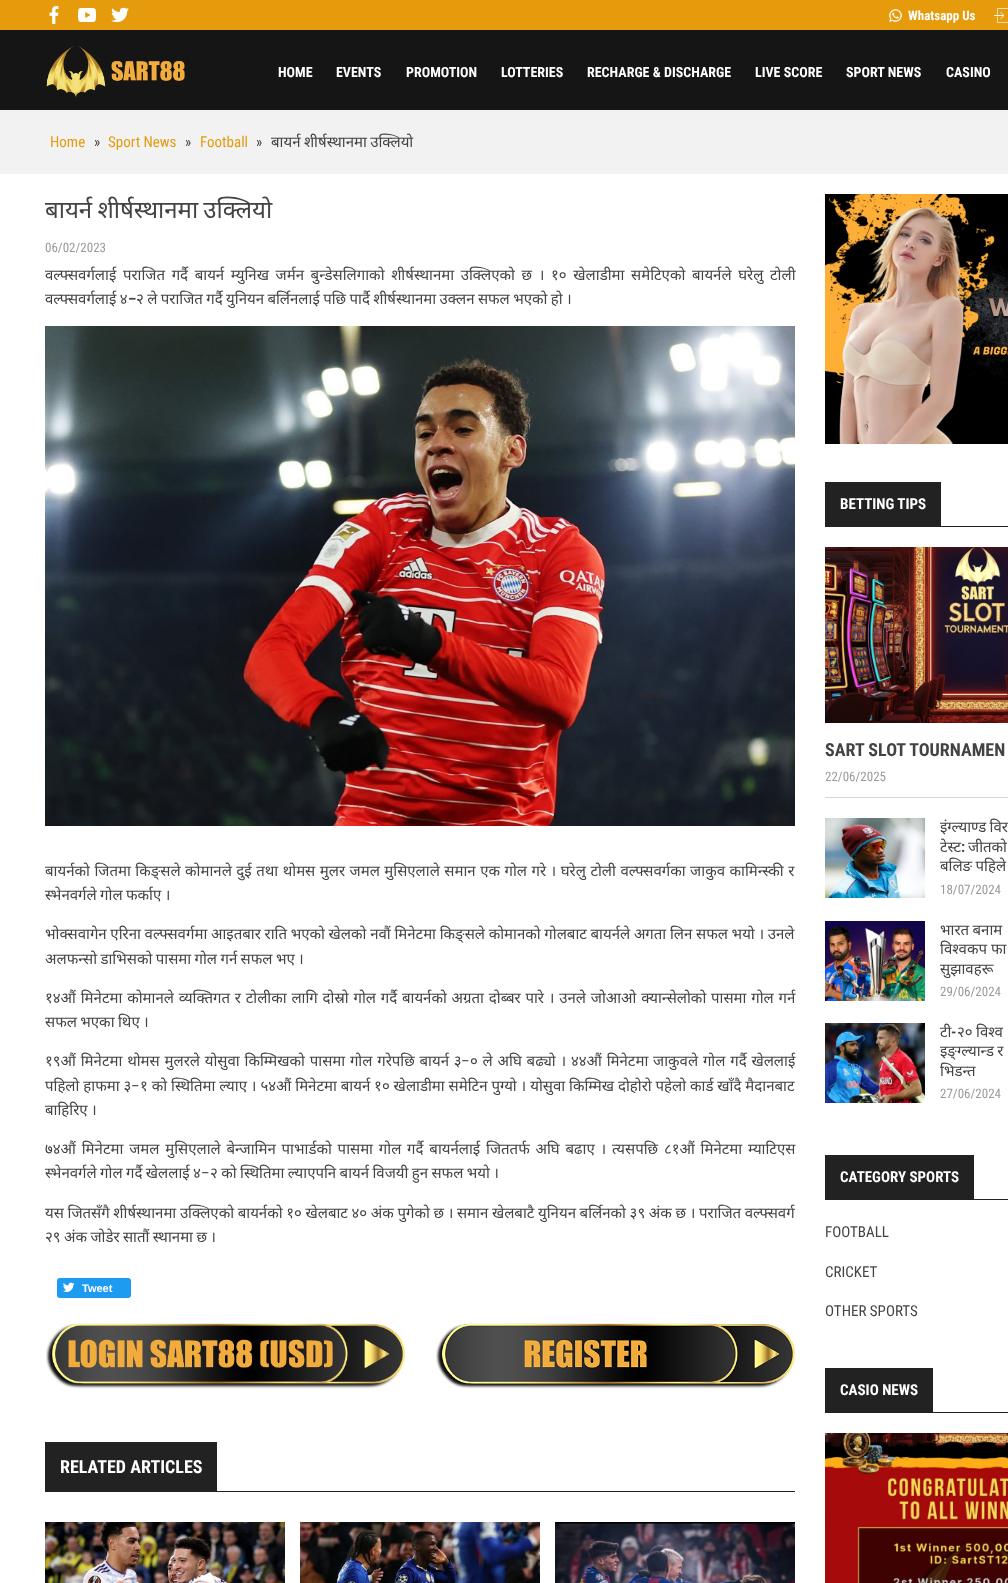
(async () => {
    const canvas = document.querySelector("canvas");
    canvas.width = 1008;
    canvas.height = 1583;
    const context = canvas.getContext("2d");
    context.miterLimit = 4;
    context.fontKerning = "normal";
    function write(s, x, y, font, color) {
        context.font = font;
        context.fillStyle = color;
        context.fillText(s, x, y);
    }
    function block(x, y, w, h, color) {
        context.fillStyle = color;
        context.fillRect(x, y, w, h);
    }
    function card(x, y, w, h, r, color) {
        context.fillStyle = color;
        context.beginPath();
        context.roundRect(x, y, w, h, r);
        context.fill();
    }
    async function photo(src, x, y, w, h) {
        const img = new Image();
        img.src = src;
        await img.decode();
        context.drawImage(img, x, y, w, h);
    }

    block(0, 0, 1008, 1583, "rgb(255, 255, 255)");
    block(0, 0, 1008, 30, "rgb(229, 155, 12)");
    await photo("media/1.png", 49, 6, 10, 18);
    await photo("media/2.png", 78, 7, 18, 16);
    await photo("media/3.png", 111, 7, 18, 16);
    await photo("media/4.png", 889, 9, 13, 13);
    write("Whatsapp Us", 908, 20, "bold 13px Roboto Condensed", "rgb(255, 255, 255)");
    await photo("media/5.png", 994, 8, 14, 15);
    block(0, 30, 1008, 80, "rgb(21, 21, 21)");
    await photo("media/6.png", 46, 45, 139, 53);
    write("HOME", 278, 77, "bold 14px Roboto Condensed", "rgb(255, 255, 255)");
    write("EVENTS", 336, 77, "bold 14px Roboto Condensed", "rgb(255, 255, 255)");
    write("PROMOTION", 406, 77, "bold 14px Roboto Condensed", "rgb(255, 255, 255)");
    write("LOTTERIES", 501, 77, "bold 14px Roboto Condensed", "rgb(255, 255, 255)");
    write("RECHARGE & DISCHARGE", 587, 77, "bold 14px Roboto Condensed", "rgb(255, 255, 255)");
    write("LIVE SCORE", 755, 77, "bold 14px Roboto Condensed", "rgb(255, 255, 255)");
    write("SPORT NEWS", 846, 77, "bold 14px Roboto Condensed", "rgb(255, 255, 255)");
    write("CASINO", 946, 77, "bold 14px Roboto Condensed", "rgb(255, 255, 255)");
    block(0, 110, 1008, 64, "rgb(242, 242, 242)");
    write("Home", 50, 147, "15px Roboto Condensed", "rgb(228, 155, 13)");
    write("»", 94, 147, "15px Roboto Condensed", "rgb(67, 67, 67)");
    write("Sport News", 108, 147, "15px Roboto Condensed", "rgb(228, 155, 13)");
    write("»", 185, 147, "15px Roboto Condensed", "rgb(67, 67, 67)");
    write("Football", 200, 147, "15px Roboto Condensed", "rgb(228, 155, 13)");
    write("»", 256, 147, "15px Roboto Condensed", "rgb(67, 67, 67)");
    context.wordSpacing = "-0.5px";
    write("बायर्न शीर्षस्थानमा उक्लियो", 271, 147, "15px Noto Sans", "rgb(67, 67, 67)");
    context.wordSpacing = "-1px";
    write("बायर्न शीर्षस्थानमा उक्लियो", 45, 218, "24px Noto Sans", "rgb(67, 67, 67)");
    context.wordSpacing = "0px";
    write("06/02/2023", 45, 252, "13px Roboto Condensed", "rgb(153, 153, 153)");
    context.wordSpacing = "2.75px";
    write("वल्फ्सवर्गलाई पराजित गर्दै बायर्न म्युनिख जर्मन बुन्डेसलिगाको शीर्षस्थानमा उक्लिएको छ । १० खेलाडीमा समेटिएको बायर्नले घरेलु टोली", 45, 280, "15px Noto Sans", "rgb(67, 67, 67)");
    context.wordSpacing = "-0.5px";
    write("वल्फ्सवर्गलाई ४", 45, 304, "15px Noto Sans", "rgb(67, 67, 67)");
    context.wordSpacing = "0px";
    write("–", 128, 304, "bold 15px Roboto Condensed", "rgb(67, 67, 67)");
    context.wordSpacing = "-0.5px";
    write("२ ले पराजित गर्दै युनियन बर्लिनलाई पछि पार्दै शीर्षस्थानमा उक्लन सफल भएको हो ।", 136, 304, "15px Noto Sans", "rgb(67, 67, 67)");
    await photo("media/7.png", 45, 326, 750, 500);
    context.wordSpacing = "0.6px";
    write("बायर्नको जितमा किङ्सले कोमानले दुई तथा थोमस मुलर जमल मुसिएलाले समान एक गोल गरे । घरेलु टोली वल्फ्सवर्गका जाकुव कामिन्स्की र", 45, 876, "15px Noto Sans", "rgb(67, 67, 67)");
    context.wordSpacing = "-0.5px";
    write("स्भेनवर्गले गोल फर्काए ।", 45, 900, "15px Noto Sans", "rgb(67, 67, 67)");
    context.save();
    context.beginPath();
    context.rect(45, 263, 750, 1040);
    context.clip();
    context.wordSpacing = "-0.2px";
    write("भोक्सवागेन एरिना वल्फ्सवर्गमा आइतबार राति भएको खेलको नवौं मिनेटमा किङ्सले कोमानको गोलबाट बायर्नले अगता लिन सफल भयो । उनले", 45, 939, "15px Noto Sans", "rgb(67, 67, 67)");
    context.restore();
    write("अलफन्सो डाभिसको पासमा गोल गर्न सफल भए ।", 45, 964, "15px Noto Sans", "rgb(67, 67, 67)");
    context.wordSpacing = "0.9px";
    write("१४औं मिनेटमा कोमानले व्यक्तिगत र टोलीका लागि दोस्रो गोल गर्दै बायर्नको अग्रता दोब्बर पारे । उनले जोआओ क्यान्सेलोको पासमा गोल गर्न", 45, 1003, "15px Noto Sans", "rgb(67, 67, 67)");
    context.wordSpacing = "-0.5px";
    write("सफल भएका थिए ।", 45, 1027, "15px Noto Sans", "rgb(67, 67, 67)");
    context.wordSpacing = "0.9px";
    write("१९औं मिनेटमा थोमस मुलरले योसुवा किम्मिखको पासमा गोल गरेपछि बायर्न ३", 45, 1066, "15px Noto Sans", "rgb(67, 67, 67)");
    context.wordSpacing = "0px";
    write("–", 461, 1066, "15px Roboto Condensed", "rgb(67, 67, 67)");
    context.wordSpacing = "0.9px";
    write("० ले अघि बढ्यो । ४४औं मिनेटमा जाकुवले गोल गर्दै खेललाई", 470, 1066, "15px Noto Sans", "rgb(67, 67, 67)");
    context.wordSpacing = "0px";
    write("पहिलो हाफमा ३", 45, 1091, "15px Noto Sans", "rgb(67, 67, 67)");
    write("–", 131, 1091, "15px Roboto Condensed", "rgb(67, 67, 67)");
    write("१ को स्थितिमा ल्याए । ५४औं मिनेटमा बायर्न १० खेलाडीमा समेटिन पुग्यो । योसुवा किम्मिख दोहोरो पहेलो कार्ड खाँदै मैदानबाट", 140, 1091, "15px Noto Sans", "rgb(67, 67, 67)");
    context.wordSpacing = "-0.5px";
    write("बाहिरिए ।", 45, 1115, "15px Noto Sans", "rgb(67, 67, 67)");
    context.wordSpacing = "1.9px";
    write("७४औं मिनेटमा जमल मुसिएलाले बेन्जामिन पाभार्डको पासमा गोल गर्दै बायर्नलाई जिततर्फ अघि बढाए । त्यसपछि ८१औं मिनेटमा म्याटिएस", 45, 1154, "15px Noto Sans", "rgb(67, 67, 67)");
    context.wordSpacing = "-0.5px";
    write("स्भेनवर्गले गोल गर्दै खेललाई ४", 45, 1178, "15px Noto Sans", "rgb(67, 67, 67)");
    context.wordSpacing = "0px";
    write("–", 201, 1178, "15px Roboto Condensed", "rgb(67, 67, 67)");
    context.wordSpacing = "-0.5px";
    write("२ को स्थितिमा ल्याएपनि बायर्न विजयी हुन सफल भयो ।", 210, 1178, "15px Noto Sans", "rgb(67, 67, 67)");
    context.wordSpacing = "-0.25px";
    write("यस जितसँगै शीर्षस्थानमा उक्लिएको बायर्नको १० खेलबाट ४० अंक पुगेको छ । समान खेलबाटै युनियन बर्लिनको ३९ अंक छ । पराजित वल्फ्सवर्ग", 45, 1218, "15px Noto Sans", "rgb(67, 67, 67)");
    context.wordSpacing = "-0.5px";
    write("२९ अंक जोडेर सातौं स्थानमा छ ।", 45, 1242, "15px Noto Sans", "rgb(67, 67, 67)");
    card(57, 1278, 74, 20, 3, "rgb(29, 155, 240)");
    await photo("media/8.png", 63, 1282, 12, 10);
    context.wordSpacing = "0px";
    write("Tweet", 82, 1292, "bold 11px Liberation Sans", "rgb(255, 255, 255)");
    await photo("media/9.png", 46, 1323, 359, 66);
    await photo("media/10.png", 436, 1323, 359, 66);
    block(45, 1491, 750, 1, "rgb(34, 34, 34)");
    block(45, 1442, 172, 49, "rgb(34, 34, 34)");
    write("RELATED ARTICLES", 60, 1473, "bold 18px Roboto Condensed", "rgb(255, 255, 255)");
    await photo("media/11.png", 45, 1522, 240, 61);
    await photo("media/12.png", 300, 1522, 240, 61);
    await photo("media/13.png", 555, 1522, 240, 61);
    await photo("media/14.png", 825, 194, 183, 250);
    block(825, 526, 183, 1, "rgb(34, 34, 34)");
    block(825, 482, 116, 44, "rgb(34, 34, 34)");
    write("BETTING TIPS", 840, 509, "bold 15px Roboto Condensed", "rgb(255, 255, 255)");
    block(825, 797, 183, 1, "rgb(214, 214, 214)");
    await photo("media/15.png", 825, 547, 183, 176);
    write("SART SLOT TOURNAMEN", 825, 756, "bold 18px Roboto Condensed", "rgb(67, 67, 67)");
    write("22/06/2025", 825, 781, "13px Roboto Condensed", "rgb(153, 153, 153)");
    await photo("media/16.png", 825, 818, 100, 80);
    context.wordSpacing = "-0.5px";
    write("इंग्ल्याण्ड विर", 940, 832, "15px Noto Sans", "rgb(67, 67, 67)");
    context.wordSpacing = "0px";
    write("टेस्ट", 940, 852, "15px Noto Sans", "rgb(67, 67, 67)");
    write(":", 961, 852, "bold 15px Roboto Condensed", "rgb(67, 67, 67)");
    write("जीतको", 968, 852, "15px Noto Sans", "rgb(67, 67, 67)");
    context.wordSpacing = "-0.5px";
    write("बलिङ पहिले", 940, 871, "15px Noto Sans", "rgb(67, 67, 67)");
    context.wordSpacing = "0px";
    write("18/07/2024", 940, 894, "13px Roboto Condensed", "rgb(153, 153, 153)");
    await photo("media/17.png", 825, 921, 100, 80);
    context.wordSpacing = "-0.5px";
    write("भारत बनाम", 940, 935, "15px Noto Sans", "rgb(67, 67, 67)");
    context.wordSpacing = "0px";
    write("विश्वकप फा", 940, 954, "15px Noto Sans", "rgb(67, 67, 67)");
    write("सुझावहरू", 940, 974, "15px Noto Sans", "rgb(67, 67, 67)");
    write("29/06/2024", 940, 996, "13px Roboto Condensed", "rgb(153, 153, 153)");
    await photo("media/18.png", 825, 1023, 100, 80);
    write("टी", 940, 1037, "15px Noto Sans", "rgb(67, 67, 67)");
    write("-", 951, 1037, "bold 15px Roboto Condensed", "rgb(67, 67, 67)");
    context.wordSpacing = "-0.5px";
    write("२० विश्व", 957, 1037, "15px Noto Sans", "rgb(67, 67, 67)");
    write("इङ्ग्ल्यान्ड र", 940, 1056, "15px Noto Sans", "rgb(67, 67, 67)");
    context.wordSpacing = "0px";
    write("भिडन्त", 940, 1076, "15px Noto Sans", "rgb(67, 67, 67)");
    write("27/06/2024", 940, 1098, "13px Roboto Condensed", "rgb(153, 153, 153)");
    block(825, 1199, 183, 1, "rgb(34, 34, 34)");
    block(825, 1155, 149, 44, "rgb(34, 34, 34)");
    write("CATEGORY SPORTS", 840, 1182, "bold 15px Roboto Condensed", "rgb(255, 255, 255)");
    write("FOOTBALL", 825, 1237, "15px Roboto Condensed", "rgb(67, 67, 67)");
    write("CRICKET", 825, 1277, "15px Roboto Condensed", "rgb(67, 67, 67)");
    write("OTHER SPORTS", 825, 1316, "15px Roboto Condensed", "rgb(67, 67, 67)");
    block(825, 1412, 183, 1, "rgb(34, 34, 34)");
    block(825, 1368, 108, 44, "rgb(34, 34, 34)");
    write("CASIO NEWS", 840, 1395, "bold 15px Roboto Condensed", "rgb(255, 255, 255)");
    await photo("media/19.png", 825, 1433, 183, 150);
})();
